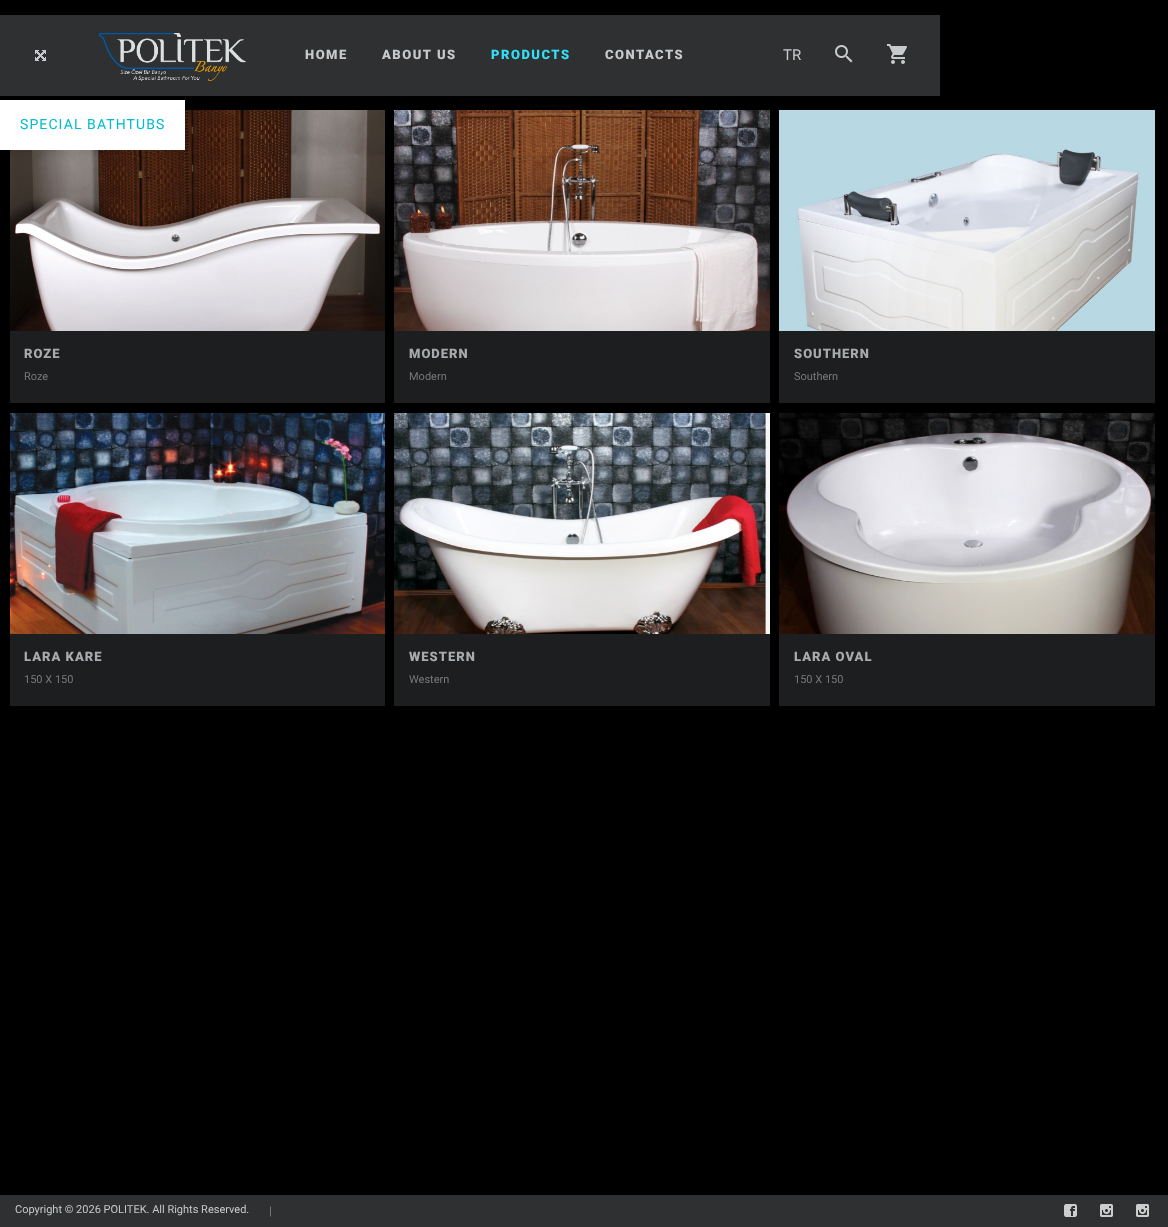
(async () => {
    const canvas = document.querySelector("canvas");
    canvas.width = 1168;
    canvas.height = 1227;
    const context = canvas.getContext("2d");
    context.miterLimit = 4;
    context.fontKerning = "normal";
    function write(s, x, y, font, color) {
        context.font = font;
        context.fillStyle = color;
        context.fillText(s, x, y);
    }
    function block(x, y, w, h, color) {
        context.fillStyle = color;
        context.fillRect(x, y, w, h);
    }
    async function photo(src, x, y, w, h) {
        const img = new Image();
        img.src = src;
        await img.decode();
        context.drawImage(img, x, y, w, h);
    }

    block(0, 0, 1168, 1227, "rgb(0, 0, 0)");
    block(0, 15, 264, 81, "rgb(46, 48, 50)");
    await photo("media/1.png", 35, 50, 11, 11);
    await photo("media/2.png", 99, 33, 147, 48);
    block(264, 15, 676, 81, "rgb(46, 48, 50)");
    context.letterSpacing = "1.5px";
    write("HOME", 305, 59, "900 13px Roboto", "rgb(199, 202, 204)");
    write("ABOUT US", 382, 59, "900 13px Roboto", "rgb(199, 202, 204)");
    write("PRODUCTS", 491, 59, "900 13px Roboto", "rgb(53, 224, 246)");
    write("CONTACTS", 605, 59, "900 13px Roboto", "rgb(199, 202, 204)");
    context.letterSpacing = "0px";
    write("TR", 783, 60, "15px Roboto", "rgb(199, 202, 204)");
    await photo("media/3.png", 835, 45, 18, 18);
    await photo("media/4.png", 887, 44, 20, 20);
    await photo("media/5.png", 10, 110, 375, 221);
    block(0, 100, 185, 50, "rgb(255, 255, 255)");
    context.letterSpacing = "1.1px";
    write("SPECIAL BATHTUBS", 20, 129, "14px Roboto", "rgb(0, 188, 212)");
    block(10, 331, 375, 72, "rgb(29, 30, 31)");
    context.letterSpacing = "1px";
    write("ROZE", 24, 358, "900 13px Roboto", "rgb(168, 171, 173)");
    context.letterSpacing = "0px";
    write("Roze", 24, 380, "11px Roboto", "rgb(120, 121, 122)");
    await photo("media/6.png", 394, 110, 376, 221);
    block(394, 331, 376, 72, "rgb(29, 30, 31)");
    context.letterSpacing = "1px";
    write("MODERN", 409, 358, "900 13px Roboto", "rgb(168, 171, 173)");
    context.letterSpacing = "0px";
    write("Modern", 409, 380, "11px Roboto", "rgb(120, 121, 122)");
    await photo("media/7.png", 779, 110, 376, 221);
    block(779, 331, 376, 72, "rgb(29, 30, 31)");
    context.letterSpacing = "1px";
    write("SOUTHERN", 794, 358, "900 13px Roboto", "rgb(168, 171, 173)");
    context.letterSpacing = "0px";
    write("Southern", 794, 380, "11px Roboto", "rgb(120, 121, 122)");
    await photo("media/8.png", 10, 413, 375, 221);
    block(10, 634, 375, 72, "rgb(29, 30, 31)");
    context.letterSpacing = "1px";
    write("LARA KARE", 24, 661, "900 13px Roboto", "rgb(168, 171, 173)");
    context.letterSpacing = "0px";
    write("150 X 150", 24, 683, "11px Roboto", "rgb(120, 121, 122)");
    await photo("media/9.png", 394, 413, 376, 221);
    block(394, 634, 376, 72, "rgb(29, 30, 31)");
    context.letterSpacing = "1px";
    write("WESTERN", 409, 661, "900 13px Roboto", "rgb(168, 171, 173)");
    context.letterSpacing = "0px";
    write("Western", 409, 683, "11px Roboto", "rgb(120, 121, 122)");
    await photo("media/10.png", 779, 413, 376, 221);
    block(779, 634, 376, 72, "rgb(29, 30, 31)");
    context.letterSpacing = "1px";
    write("LARA OVAL", 794, 661, "900 13px Roboto", "rgb(168, 171, 173)");
    context.letterSpacing = "0px";
    write("150 X 150", 794, 683, "11px Roboto", "rgb(120, 121, 122)");
    block(0, 1195, 1168, 32, "rgb(46, 48, 50)");
    write("Copyright © 2026 POLITEK. All Rights Reserved.", 15, 1213, "11px Roboto", "rgb(199, 202, 204)");
    write("|", 269, 1215, "12px Roboto", "rgb(126, 127, 129)");
    await photo("media/11.png", 1064, 1204, 13, 13);
    await photo("media/12.png", 1100, 1204, 13, 13);
    await photo("media/12.png", 1136, 1204, 13, 13);
})();
